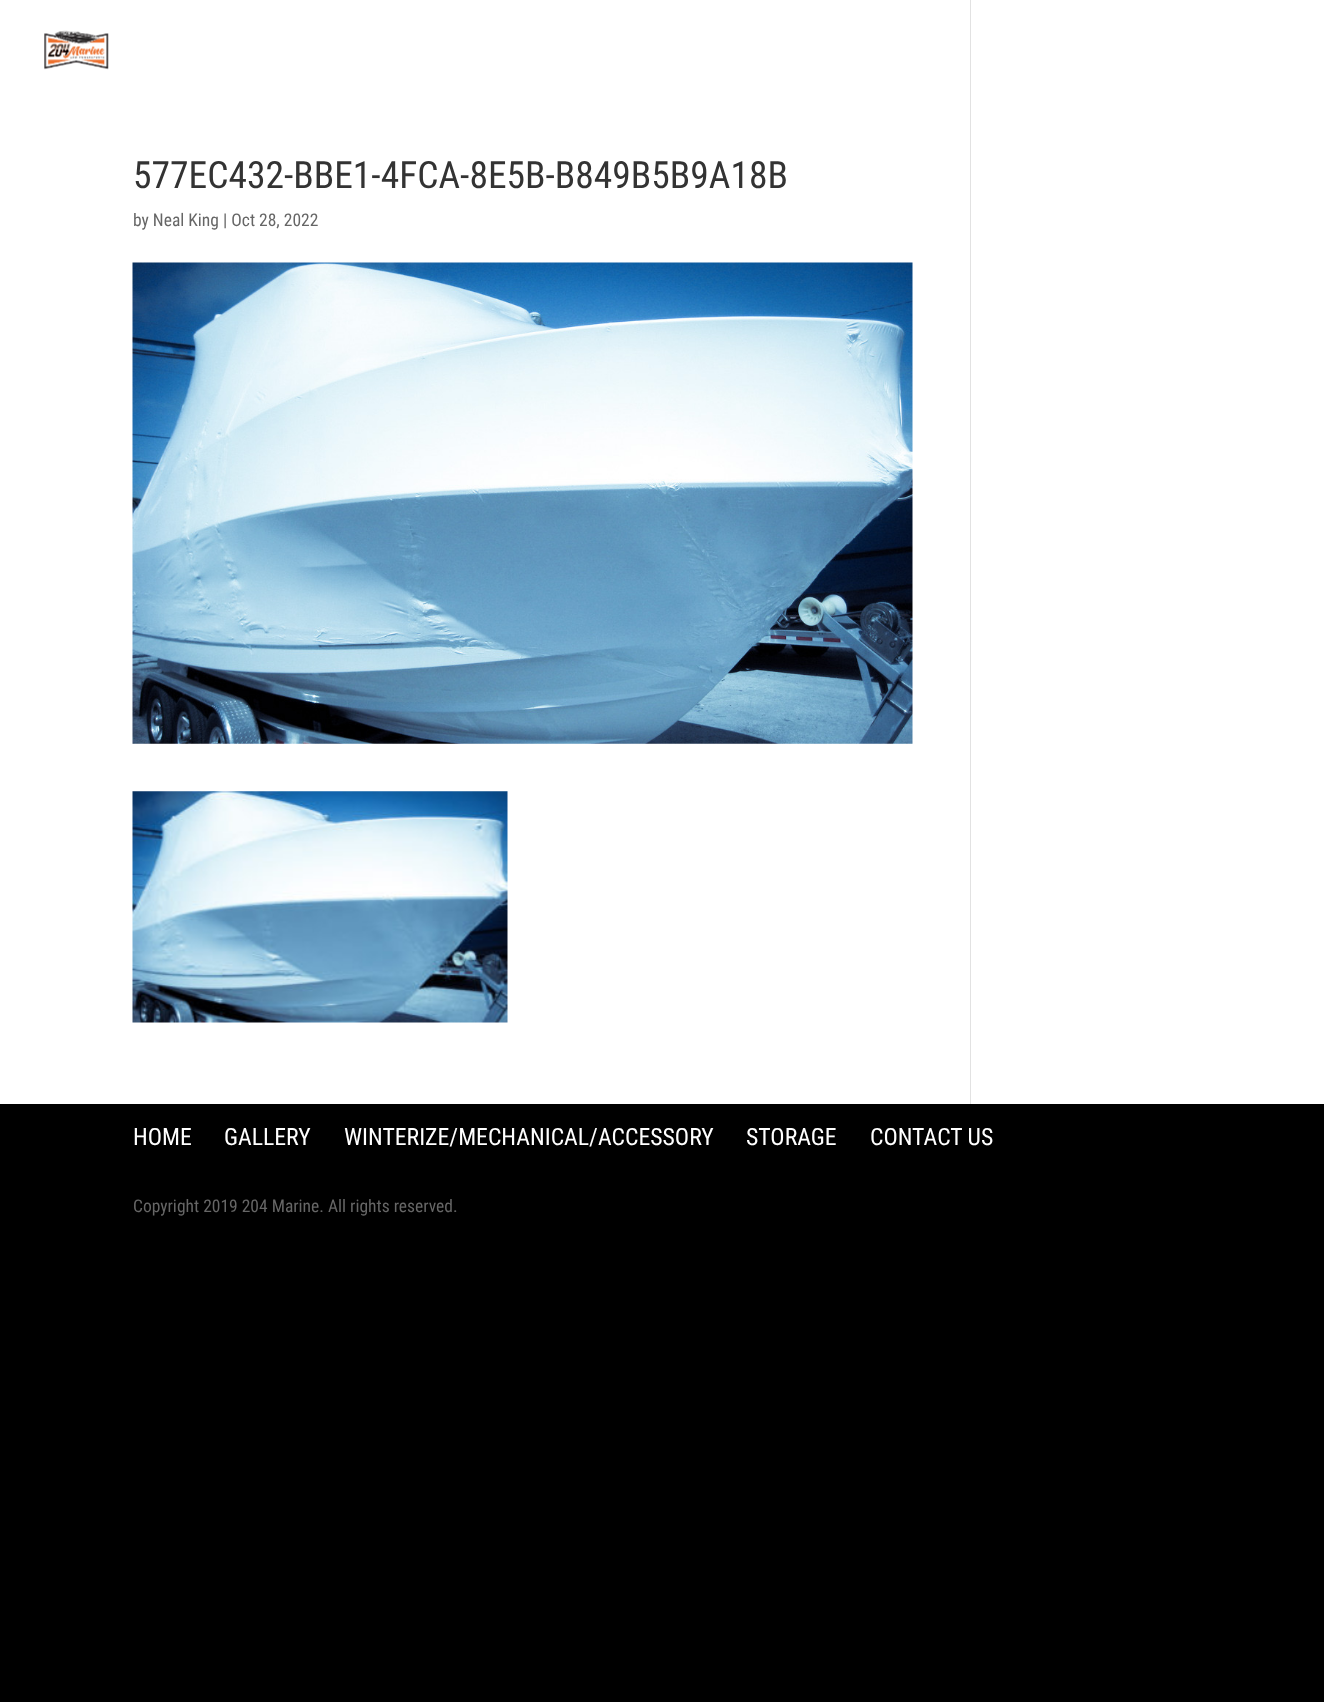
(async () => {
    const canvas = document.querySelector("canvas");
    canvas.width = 1324;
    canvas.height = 1702;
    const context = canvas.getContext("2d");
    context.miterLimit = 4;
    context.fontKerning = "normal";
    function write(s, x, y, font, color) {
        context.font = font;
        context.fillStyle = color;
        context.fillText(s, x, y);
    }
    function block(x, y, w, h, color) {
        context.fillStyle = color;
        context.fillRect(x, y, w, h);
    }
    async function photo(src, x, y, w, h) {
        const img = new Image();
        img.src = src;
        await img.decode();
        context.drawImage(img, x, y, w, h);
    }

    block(0, 0, 1324, 1702, "rgb(0, 0, 0)");
    block(0, 0, 1324, 1104, "rgb(255, 255, 255)");
    await photo("media/1.png", 44, 30, 65, 40);
    write("577EC432-BBE1-4FCA-8E5B-B849B5B9A18B", 133, 188, "37.5px Roboto Condensed", "rgb(51, 51, 51)");
    write("by Neal King | Oct 28, 2022", 133, 226, "17.5px Roboto Condensed", "rgb(102, 102, 102)");
    await photo("media/2.png", 132, 262, 781, 482);
    await photo("media/3.png", 132, 791, 376, 232);
    block(970, 0, 1, 1104, "rgb(226, 226, 226)");
    write("HOME", 133, 1145, "23.75px Roboto Condensed", "rgb(255, 255, 255)");
    write("GALLERY", 224, 1145, "23.75px Roboto Condensed", "rgb(255, 255, 255)");
    write("WINTERIZE/MECHANICAL/ACCESSORY", 344, 1145, "23.75px Roboto Condensed", "rgb(255, 255, 255)");
    write("STORAGE", 746, 1145, "23.75px Roboto Condensed", "rgb(255, 255, 255)");
    write("CONTACT US", 870, 1145, "23.75px Roboto Condensed", "rgb(255, 255, 255)");
    write("Copyright 2019 204 Marine. All rights reserved.", 133, 1212, "17.5px Roboto Condensed", "rgb(102, 102, 102)");
})();
